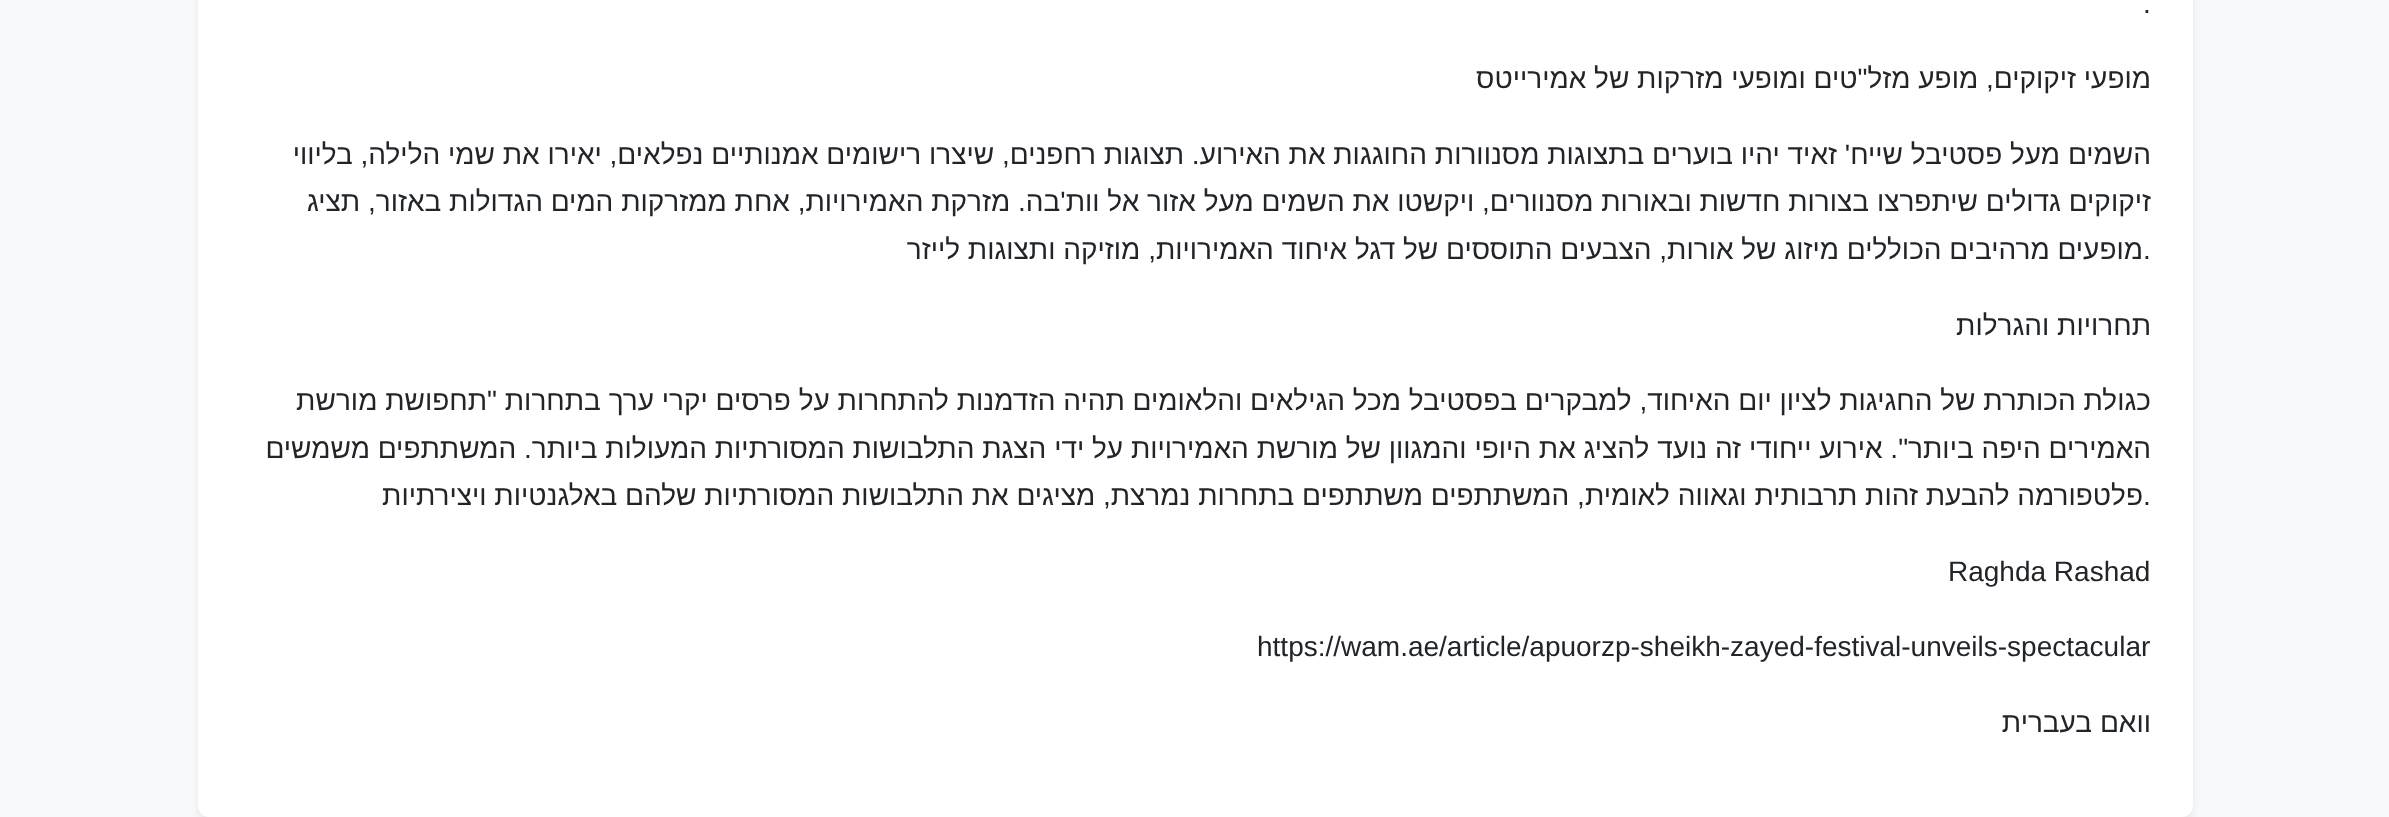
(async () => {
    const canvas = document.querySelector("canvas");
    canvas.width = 2389;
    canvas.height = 817;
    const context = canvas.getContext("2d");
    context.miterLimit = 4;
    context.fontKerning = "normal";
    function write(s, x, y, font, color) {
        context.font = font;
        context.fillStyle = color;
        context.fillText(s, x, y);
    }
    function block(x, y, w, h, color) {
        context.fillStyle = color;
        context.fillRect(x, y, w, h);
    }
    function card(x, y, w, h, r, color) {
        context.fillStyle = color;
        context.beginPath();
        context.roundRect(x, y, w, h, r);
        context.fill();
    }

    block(0, 0, 2389, 817, "rgb(248, 249, 250)");
    context.fillStyle = "rgba(0, 0, 0, 0.07)";
    context.filter = "blur(3.5px)";
    context.beginPath();
    context.roundRect(198, -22, 1995, 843, 11);
    context.fill();
    context.filter = "none";
    card(198, -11, 1995, 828, 11, "rgb(255, 255, 255)");
    write(".", 2143, 13, "28px Liberation Sans", "rgb(33, 37, 41)");
    context.direction = "rtl";
    write("מופעי זיקוקים, מופע מזל\"טים ומופעי מזרקות של אמירייטס", 2151, 88, "28px Liberation Sans", "rgb(33, 37, 41)");
    write("השמים מעל פסטיבל שייח' זאיד יהיו בוערים בתצוגות מסנוורות החוגגות את האירוע. תצוגות רחפנים, שיצרו רישומים אמנותיים נפלאים, יאירו את שמי הלילה, בליווי", 2151, 164, "28px Liberation Sans", "rgb(33, 37, 41)");
    write("זיקוקים גדולים שיתפרצו בצורות חדשות ובאורות מסנוורים, ויקשטו את השמים מעל אזור אל וות'בה. מזרקת האמירויות, אחת ממזרקות המים הגדולות באזור, תציג", 2151, 211, "28px Liberation Sans", "rgb(33, 37, 41)");
    context.direction = "ltr";
    write(".", 2143, 259, "28px Liberation Sans", "rgb(33, 37, 41)");
    context.direction = "rtl";
    write("מופעים מרהיבים הכוללים מיזוג של אורות, הצבעים התוססים של דגל איחוד האמירויות, מוזיקה ותצוגות לייזר", 2143, 259, "28px Liberation Sans", "rgb(33, 37, 41)");
    write("תחרויות והגרלות", 2151, 335, "28px Liberation Sans", "rgb(33, 37, 41)");
    write("כגולת הכותרת של החגיגות לציון יום האיחוד, למבקרים בפסטיבל מכל הגילאים והלאומים תהיה הזדמנות להתחרות על פרסים יקרי ערך בתחרות \"תחפושת מורשת", 2151, 410, "28px Liberation Sans", "rgb(33, 37, 41)");
    write("האמירים היפה ביותר\". אירוע ייחודי זה נועד להציג את היופי והמגוון של מורשת האמירויות על ידי הצגת התלבושות המסורתיות המעולות ביותר. המשתתפים משמשים", 2151, 458, "28px Liberation Sans", "rgb(33, 37, 41)");
    context.direction = "ltr";
    write(".", 2143, 505, "28px Liberation Sans", "rgb(33, 37, 41)");
    context.direction = "rtl";
    write("פלטפורמה להבעת זהות תרבותית וגאווה לאומית, המשתתפים משתתפים בתחרות נמרצת, מציגים את התלבושות המסורתיות שלהם באלגנטיות ויצירתיות", 2143, 505, "28px Liberation Sans", "rgb(33, 37, 41)");
    context.direction = "ltr";
    write("Raghda Rashad", 1948, 581, "28px Liberation Sans", "rgb(33, 37, 41)");
    write("https://wam.ae/article/apuorzp-sheikh-zayed-festival-unveils-spectacular", 1257, 656, "28px Liberation Sans", "rgb(33, 37, 41)");
    context.direction = "rtl";
    write("וואם בעברית", 2151, 732, "28px Liberation Sans", "rgb(33, 37, 41)");
})();
